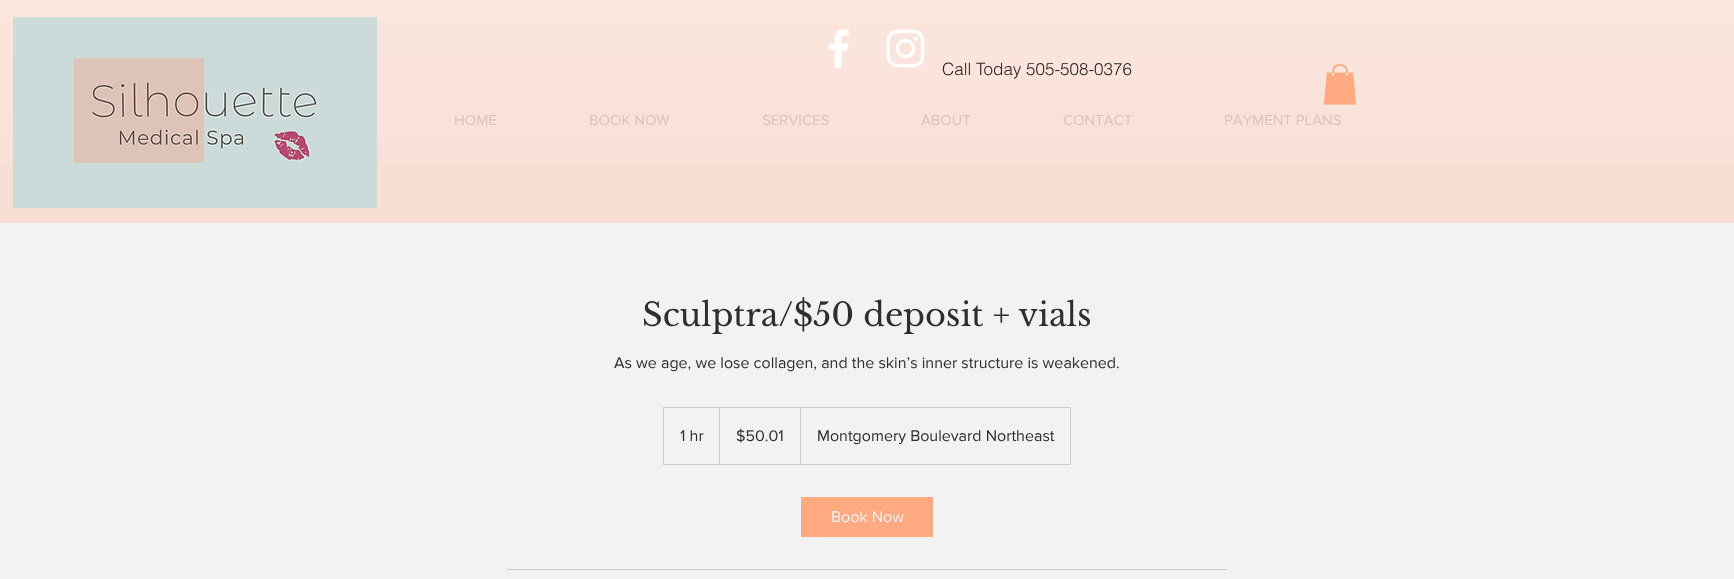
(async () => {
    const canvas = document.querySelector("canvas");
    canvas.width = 1734;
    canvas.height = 579;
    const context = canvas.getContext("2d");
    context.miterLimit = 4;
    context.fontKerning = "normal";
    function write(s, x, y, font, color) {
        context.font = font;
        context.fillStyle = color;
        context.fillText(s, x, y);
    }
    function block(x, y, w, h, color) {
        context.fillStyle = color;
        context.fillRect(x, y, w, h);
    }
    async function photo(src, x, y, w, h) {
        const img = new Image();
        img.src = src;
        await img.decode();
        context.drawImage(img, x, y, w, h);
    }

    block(0, 0, 1734, 579, "rgb(242, 242, 242)");
    block(0, 0, 1734, 223, "rgb(249, 222, 211)");
    await photo("media/1.png", 0, 0, 1734, 165);
    await photo("media/2.png", 13, 17, 364, 191);
    await photo("media/3.png", 828, 29, 21, 39);
    await photo("media/4.png", 886, 29, 39, 39);
    write("Call Today 505-508-0376", 942, 75, "300 17px helvetica", "rgb(40, 38, 38)");
    await photo("media/5.png", 1323, 64, 34, 41);
    write("HOME", 454, 125, "15px 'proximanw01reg'", "rgb(222, 195, 184)");
    write("BOOK NOW", 589, 125, "15px 'proximanw01reg'", "rgb(222, 195, 184)");
    write("SERVICES", 762, 125, "15px 'proximanw01reg'", "rgb(222, 195, 184)");
    write("ABOUT", 921, 125, "15px 'proximanw01reg'", "rgb(222, 195, 184)");
    write("CONTACT", 1063, 125, "15px 'proximanw01reg'", "rgb(222, 195, 184)");
    write("PAYMENT PLANS", 1224, 125, "15px 'proximanw01reg'", "rgb(222, 195, 184)");
    write("Sculptra/$50 deposit + vials", 642, 326, "32px Libre Baskerville", "rgb(46, 46, 46)");
    write("As we age, we lose collagen, and the skin’s inner structure is weakened.", 614, 368, "16px 'proximanw01reg'", "rgb(46, 46, 46)");
    context.strokeStyle = "rgb(203, 203, 203)";
    context.strokeRect(663.5, 407.5, 407, 57);
    write("1 hr", 680, 441, "16px 'proximanw01reg'", "rgb(46, 46, 46)");
    context.fillStyle = "rgb(203, 203, 203)";
    context.beginPath();
    context.moveTo(719, 464);
    context.lineTo(719, 407);
    context.lineTo(720, 408);
    context.lineTo(720, 464);
    context.closePath();
    context.fill();
    write("$50.01", 736, 441, "16px 'proximanw01reg'", "rgb(46, 46, 46)");
    context.fillStyle = "rgb(203, 203, 203)";
    context.beginPath();
    context.moveTo(800, 464);
    context.lineTo(800, 407);
    context.lineTo(801, 408);
    context.lineTo(801, 464);
    context.closePath();
    context.fill();
    write("Montgomery Boulevard Northeast", 817, 441, "16px 'proximanw01reg'", "rgb(46, 46, 46)");
    block(801, 497, 132, 40, "rgb(255, 170, 129)");
    write("Book Now", 831, 522, "16px 'proximanw01reg'", "rgb(242, 242, 242)");
    block(507, 569, 720, 1, "rgb(203, 203, 203)");
})();
